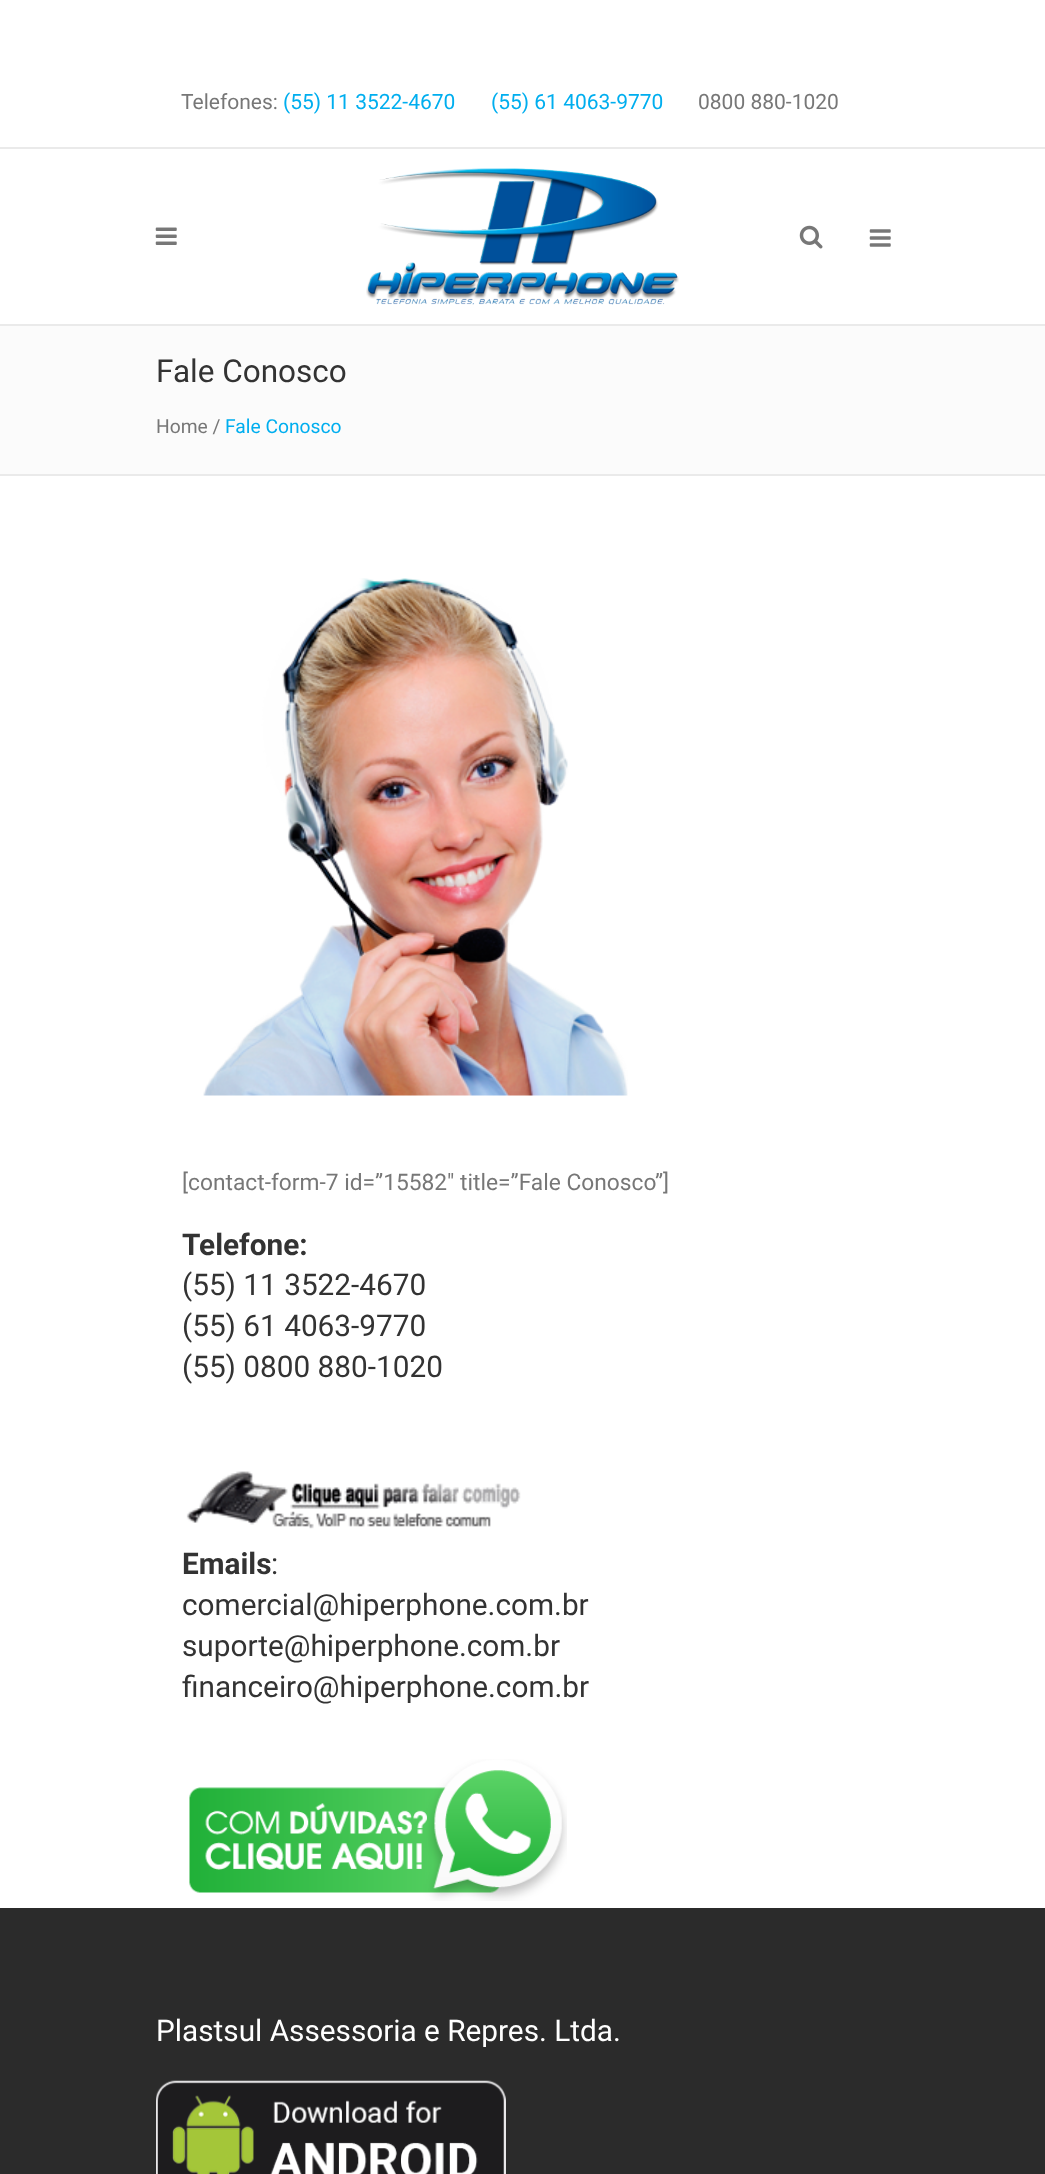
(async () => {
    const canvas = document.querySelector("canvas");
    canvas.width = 1045;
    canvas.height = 2174;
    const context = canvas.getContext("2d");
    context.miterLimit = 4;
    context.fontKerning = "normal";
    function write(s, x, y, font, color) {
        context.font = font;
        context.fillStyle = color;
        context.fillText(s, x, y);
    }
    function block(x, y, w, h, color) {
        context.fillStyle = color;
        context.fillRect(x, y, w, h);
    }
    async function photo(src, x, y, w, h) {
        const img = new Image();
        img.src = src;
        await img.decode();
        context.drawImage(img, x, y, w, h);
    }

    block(0, 0, 1045, 2174, "rgb(255, 255, 255)");
    block(0, 147, 1045, 2, "rgb(234, 234, 234)");
    write("Telefones:", 181, 109, "21px Roboto", "rgb(119, 119, 119)");
    write("(55) 11 3522-4670", 283, 109, "21px Roboto", "rgb(0, 174, 239)");
    write("(55) 61 4063-9770", 491, 109, "21px Roboto", "rgb(0, 174, 239)");
    write("0800 880-1020", 698, 109, "21px Roboto", "rgb(119, 119, 119)");
    block(0, 324, 1045, 2, "rgb(234, 234, 234)");
    await photo("media/1.png", 155, 227, 22, 18);
    await photo("media/2.png", 366, 168, 313, 137);
    await photo("media/3.png", 799, 225, 24, 24);
    await photo("media/4.png", 869, 229, 22, 18);
    block(0, 326, 1045, 148, "rgb(251, 251, 251)");
    block(0, 474, 1045, 2, "rgb(234, 234, 234)");
    write("Fale Conosco", 156, 382, "31.5px Roboto", "rgb(51, 51, 51)");
    write("Home /", 156, 433, "19.25px Roboto", "rgb(119, 119, 119)");
    write("Fale Conosco", 225, 433, "19.25px Roboto", "rgb(0, 174, 239)");
    await photo("media/5.png", 203, 578, 425, 518);
    write("[contact-form-7 id=”15582″ title=”Fale Conosco”]", 182, 1190, "22.75px Roboto", "rgb(119, 119, 119)");
    write("Telefone:", 182, 1255, "bold 29.75px Roboto", "rgb(51, 51, 51)");
    write("(55) 11 3522-4670", 182, 1295, "29.75px Roboto", "rgb(51, 51, 51)");
    write("(55) 61 4063-9770", 182, 1336, "29.75px Roboto", "rgb(51, 51, 51)");
    write("(55) 0800 880-1020", 182, 1377, "29.75px Roboto", "rgb(51, 51, 51)");
    await photo("media/6.png", 186, 1471, 335, 58);
    write("Emails", 182, 1574, "bold 29.75px Roboto", "rgb(51, 51, 51)");
    write(":", 271, 1574, "29.75px Roboto", "rgb(51, 51, 51)");
    write("comercial@hiperphone.com.br", 182, 1615, "29.75px Roboto", "rgb(51, 51, 51)");
    write("suporte@hiperphone.com.br", 182, 1656, "29.75px Roboto", "rgb(51, 51, 51)");
    write("financeiro@hiperphone.com.br", 182, 1697, "29.75px Roboto", "rgb(51, 51, 51)");
    await photo("media/7.png", 189, 1759, 378, 142);
    block(0, 1908, 1045, 266, "rgb(43, 43, 43)");
    write("Plastsul Assessoria e Repres. Ltda.", 156, 2041, "29.75px Roboto", "rgb(255, 255, 255)");
    await photo("media/8.png", 156, 2080, 350, 94);
})();
